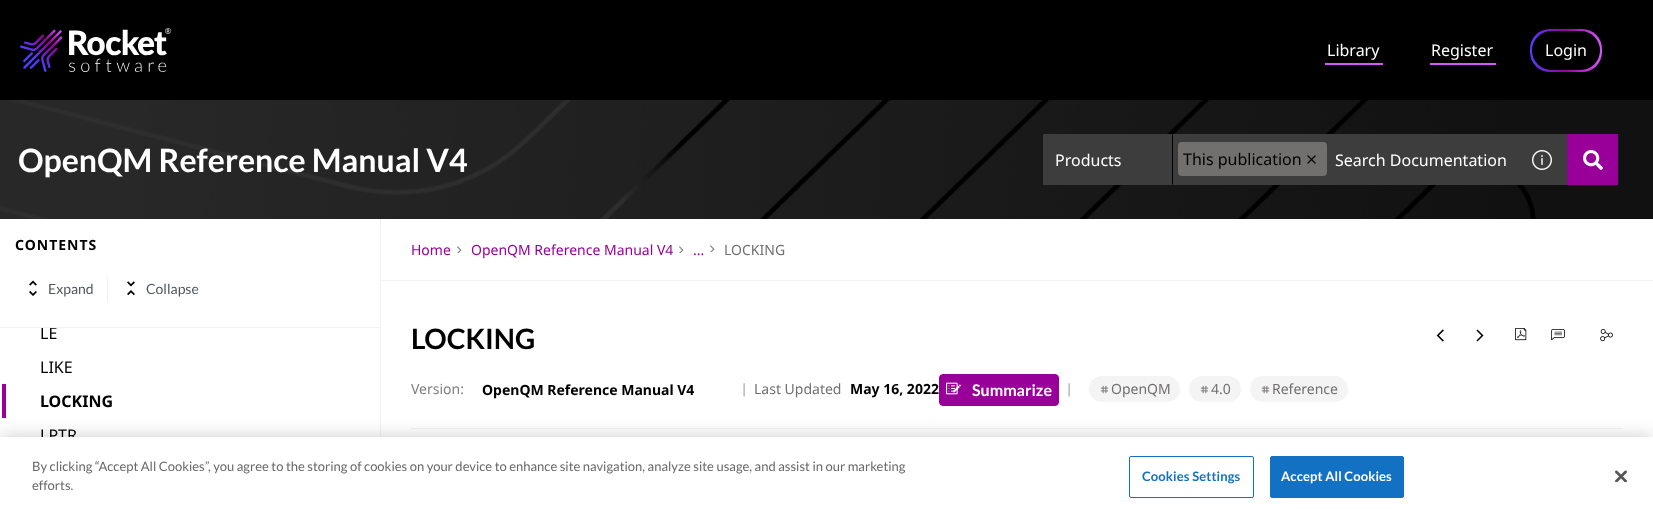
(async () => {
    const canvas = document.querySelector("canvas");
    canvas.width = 1653;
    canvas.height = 519;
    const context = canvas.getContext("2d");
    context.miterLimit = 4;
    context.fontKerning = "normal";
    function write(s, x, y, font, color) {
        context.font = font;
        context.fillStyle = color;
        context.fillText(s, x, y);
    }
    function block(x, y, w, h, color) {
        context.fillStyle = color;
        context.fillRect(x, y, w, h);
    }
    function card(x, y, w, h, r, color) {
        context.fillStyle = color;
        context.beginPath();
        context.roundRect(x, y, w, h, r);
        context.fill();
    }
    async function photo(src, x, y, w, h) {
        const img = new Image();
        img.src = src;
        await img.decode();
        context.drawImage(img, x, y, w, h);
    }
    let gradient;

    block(0, 0, 1653, 519, "rgb(255, 255, 255)");
    block(0, 0, 1653, 100, "rgb(0, 0, 0)");
    await photo("media/1.png", 20, 28, 151, 44);
    write("Library", 1327, 56, "16px Noto Sans", "rgb(255, 255, 255)");
    block(1325, 63, 58, 2, "rgb(210, 87, 252)");
    write("Register", 1431, 56, "16px Noto Sans", "rgb(255, 255, 255)");
    block(1430, 63, 66, 2, "rgb(210, 87, 252)");
    gradient = context.createLinearGradient(1530, 51, 1602, 51);
    gradient.addColorStop(0, "rgb(84, 60, 251)");
    gradient.addColorStop(0.5, "rgb(153, 0, 153)");
    gradient.addColorStop(1, "rgb(210, 87, 252)");
    context.fillStyle = gradient;
    context.beginPath();
    context.roundRect(1530, 29, 72, 43, 20);
    context.fill();
    card(1532, 31, 68, 39, 19.5, "rgb(0, 0, 0)");
    write("Login", 1545, 56, "16px Noto Sans", "rgb(255, 255, 255)");
    await photo("media/2.png", 0, 100, 1653, 119);
    write("OpenQM Reference Manual V4", 18, 172, "bold 32px Lato", "rgb(255, 255, 255)");
    block(1043, 134, 130, 51, "rgb(61, 61, 61)");
    context.fillStyle = "rgb(0, 0, 0)";
    context.beginPath();
    context.moveTo(1173, 134);
    context.lineTo(1173, 185);
    context.lineTo(1172, 184);
    context.lineTo(1172, 135);
    context.closePath();
    context.fill();
    write("Products", 1055, 166, "16px Noto Sans", "rgb(255, 255, 255)");
    block(1159, 157, 1, 1, "rgb(67, 67, 67)");
    block(1173, 134, 394, 51, "rgb(61, 61, 61)");
    await photo("media/3.png", 1532, 150, 20, 20);
    block(1567, 134, 51, 51, "rgb(153, 0, 153)");
    await photo("media/4.png", 1583, 150, 20, 20);
    card(1178, 142, 149, 34, 4, "rgb(114, 111, 111)");
    write("This publication", 1183, 165, "16px Noto Sans", "rgb(0, 0, 0)");
    await photo("media/5.png", 1307, 155, 9, 9);
    write("Search Documentation", 1335, 166, "16px Noto Sans", "rgb(255, 255, 255)");
    block(380, 219, 1, 218, "rgb(242, 242, 242)");
    block(0, 327, 380, 1, "rgb(242, 242, 242)");
    context.letterSpacing = "1px";
    write("CONTENTS", 15, 250, "bold 14px Noto Sans", "rgb(0, 0, 0)");
    await photo("media/6.png", 29, 280, 8, 16);
    context.letterSpacing = "0px";
    write("Expand", 48, 294, "14px Lato", "rgb(82, 88, 93)");
    block(107, 276, 1, 25, "rgb(239, 240, 240)");
    await photo("media/7.png", 127, 281, 8, 15);
    write("Collapse", 146, 294, "14px Lato", "rgb(82, 88, 93)");
    context.save();
    context.beginPath();
    context.rect(0, 328, 380, 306);
    context.clip();
    write("LE", 40, 339, "16px Noto Sans", "rgb(0, 0, 0)");
    context.restore();
    write("LIKE", 40, 373, "16px Noto Sans", "rgb(0, 0, 0)");
    block(2, 384, 4, 34, "rgb(153, 0, 153)");
    write("LOCKING", 40, 407, "bold 16px Noto Sans", "rgb(0, 0, 0)");
    write("LPTR", 40, 441, "16px Noto Sans", "rgb(0, 0, 0)");
    block(381, 280, 1272, 1, "rgb(242, 242, 242)");
    write("Home", 411, 255, "14px Noto Sans", "rgb(153, 0, 153)");
    await photo("media/8.png", 457, 246, 5, 7);
    write("OpenQM Reference Manual V4", 471, 255, "14px Noto Sans", "rgb(153, 0, 153)");
    await photo("media/8.png", 679, 246, 5, 7);
    await photo("media/8.png", 710, 245, 5, 7);
    write("...", 693, 255, "14px Noto Sans", "rgb(153, 0, 153)");
    write("LOCKING", 724, 255, "14px Noto Sans", "rgb(114, 111, 111)");
    block(411, 428, 1212, 1, "rgb(242, 242, 242)");
    write("LOCKING", 411, 349, "bold 28px Lato", "rgb(0, 0, 0)");
    await photo("media/9.png", 1436, 329, 8, 13);
    await photo("media/10.png", 1476, 329, 8, 13);
    await photo("media/11.png", 1515, 328, 12, 13);
    await photo("media/12.png", 1551, 329, 14, 12);
    await photo("media/13.png", 1600, 329, 13, 13);
    write("Version:", 411, 394, "14px Noto Sans", "rgb(127, 127, 127)");
    write("OpenQM Reference Manual V4", 482, 395, "bold 14px Noto Sans", "rgb(0, 0, 0)");
    write("|", 742, 394, "14px Lato", "rgb(147, 151, 154)");
    write("Last Updated", 754, 394, "14px Noto Sans", "rgb(114, 111, 111)");
    write("May 16, 2022", 850, 394, "bold 14px Noto Sans", "rgb(0, 0, 0)");
    context.fillStyle = "rgb(153, 0, 153)";
    context.beginPath();
    context.roundRect(939.5, 374.5, 119, 31, 3.5);
    context.fill();
    context.strokeStyle = "rgb(153, 0, 153)";
    context.stroke();
    await photo("media/14.png", 946, 382, 15, 13);
    write("Summarize", 972, 396, "bold 16px Lato", "rgb(255, 255, 255)");
    write("|", 1067, 394, "14px Lato", "rgb(147, 151, 154)");
    card(1089, 376, 91, 26, 13, "rgb(244, 244, 244)");
    await photo("media/15.png", 1100, 385, 9, 9);
    write("OpenQM", 1111, 394, "14px Noto Sans", "rgb(114, 111, 111)");
    card(1189, 376, 52, 26, 13, "rgb(244, 244, 244)");
    await photo("media/15.png", 1200, 385, 9, 9);
    write("4.0", 1211, 394, "14px Noto Sans", "rgb(114, 111, 111)");
    card(1250, 376, 98, 26, 13, "rgb(244, 244, 244)");
    await photo("media/15.png", 1261, 385, 9, 9);
    write("Reference", 1272, 394, "14px Noto Sans", "rgb(114, 111, 111)");
    context.fillStyle = "rgba(0, 0, 0, 0.2)";
    context.filter = "blur(9px)";
    context.beginPath();
    context.rect(0, 437, 1653, 82);
    context.fill();
    context.filter = "none";
    block(0, 437, 1653, 82, "rgb(255, 255, 255)");
    write("By clicking “Accept All Cookies”, you agree to the storing of cookies on your device to enhance site navigation, analyze site usage, and assist in our marketing", 32, 471, "13px Lato", "rgb(105, 105, 105)");
    write("efforts.", 32, 490, "13px Lato", "rgb(105, 105, 105)");
    context.beginPath();
    context.roundRect(1129.5, 456.5, 124, 41, 1.5);
    context.strokeStyle = "rgb(19, 113, 195)";
    context.stroke();
    context.letterSpacing = "0.1px";
    write("Cookies Settings", 1142, 481, "bold 13px Lato", "rgb(19, 113, 195)");
    context.beginPath();
    context.roundRect(1270.5, 456.5, 133, 41, 1.5);
    context.fill();
    context.stroke();
    write("Accept All Cookies", 1281, 481, "bold 13px Lato", "rgb(255, 255, 255)");
    await photo("media/16.png", 1615, 470, 12, 12);
})();
